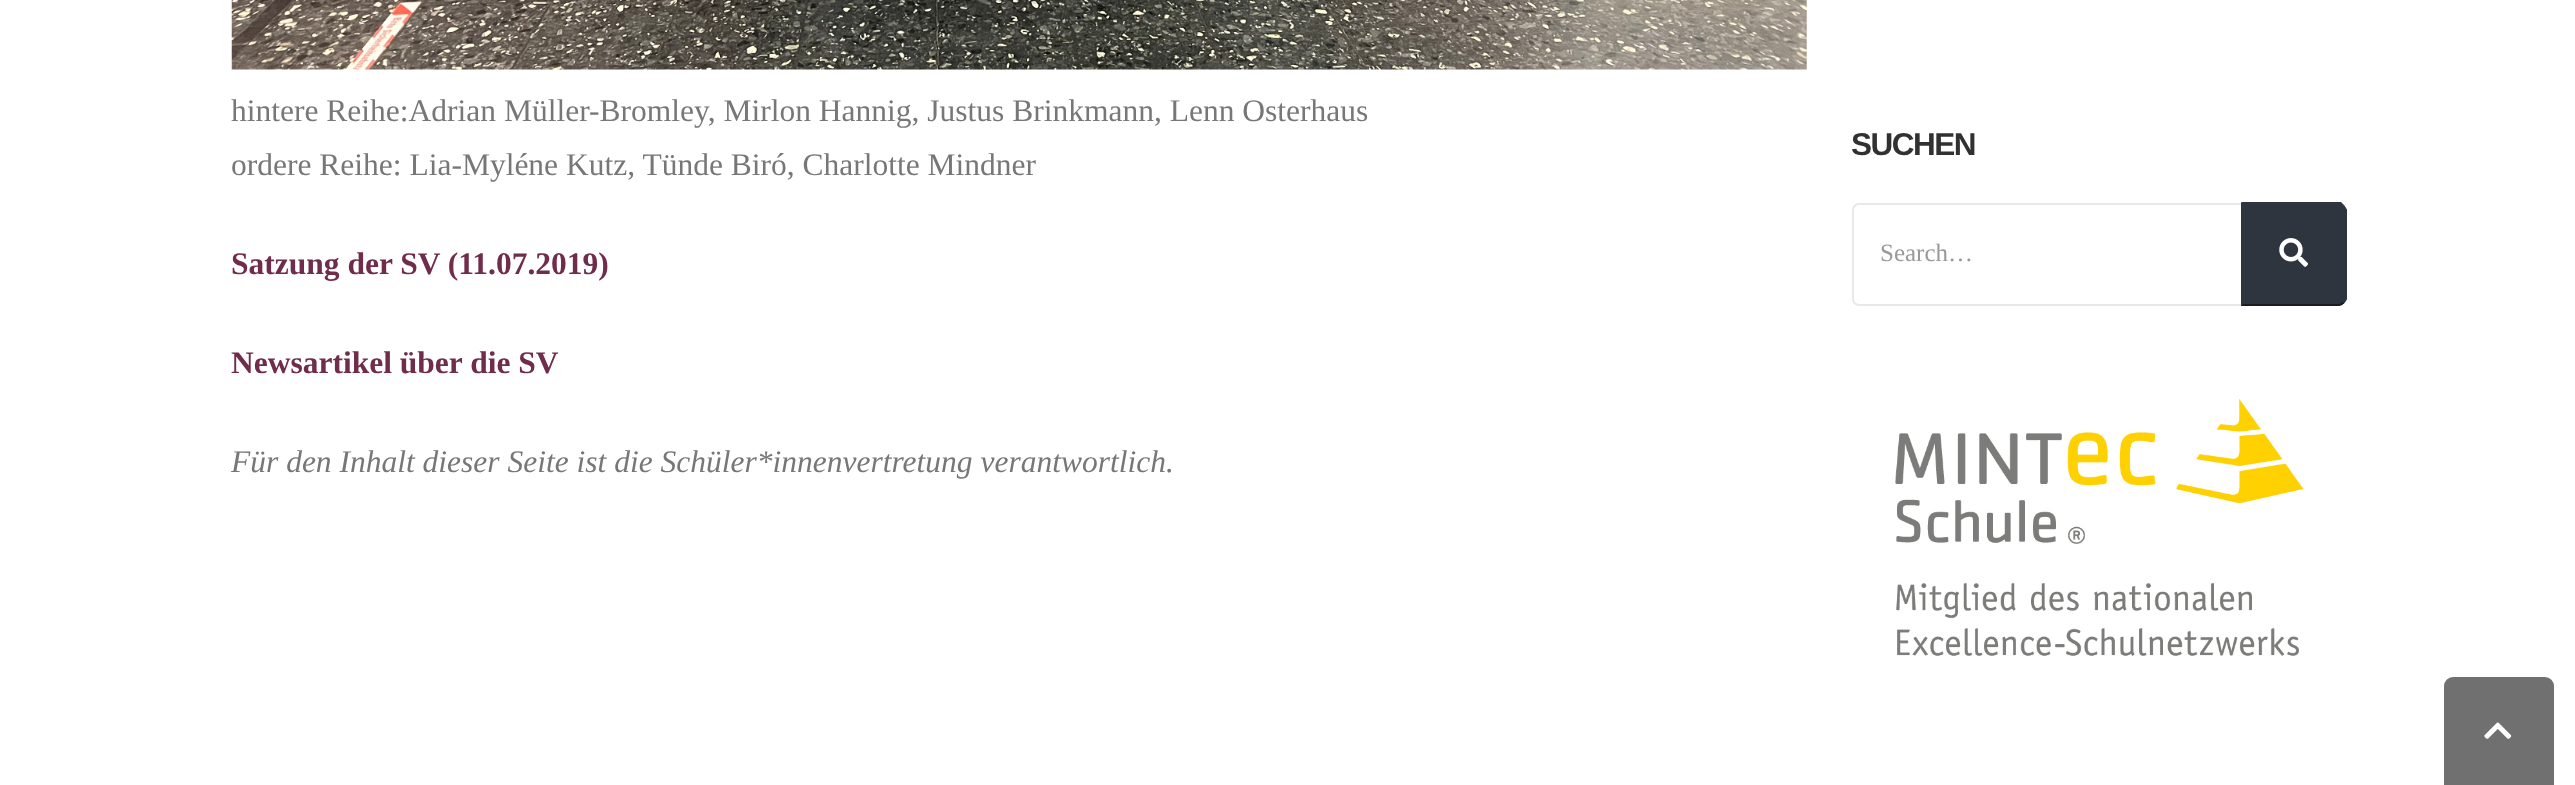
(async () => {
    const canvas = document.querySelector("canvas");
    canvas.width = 2575;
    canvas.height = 785;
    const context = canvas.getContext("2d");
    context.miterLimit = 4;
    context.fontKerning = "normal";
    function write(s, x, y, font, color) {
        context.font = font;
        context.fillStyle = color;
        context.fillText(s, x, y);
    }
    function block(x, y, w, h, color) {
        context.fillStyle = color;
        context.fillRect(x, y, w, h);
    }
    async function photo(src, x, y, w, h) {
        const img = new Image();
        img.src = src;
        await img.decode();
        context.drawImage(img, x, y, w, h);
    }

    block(0, 0, 2575, 785, "rgb(255, 255, 255)");
    await photo("media/1.png", 231, 0, 1576, 70);
    write("hintere Reihe:Adrian Müller-Bromley, Mirlon Hannig, Justus Brinkmann, Lenn Osterhaus", 231, 121, "31.5px Liberation Serif", "rgb(119, 119, 119)");
    write("ordere Reihe: Lia-Myléne Kutz, Tünde Biró, Charlotte Mindner", 231, 175, "31.5px Liberation Serif", "rgb(119, 119, 119)");
    write("Satzung der SV (11.07.2019)", 231, 274, "bold 31.5px Liberation Serif", "rgb(112, 44, 75)");
    write("Newsartikel über die SV", 231, 373, "bold 31.5px Liberation Serif", "rgb(112, 44, 75)");
    write("Für den Inhalt dieser Seite ist die Schüler*innenvertretung verantwortlich.", 231, 472, "italic 31.5px Liberation Serif", "rgb(119, 119, 119)");
    context.letterSpacing = "-1.5px";
    write("SUCHEN", 1851, 155, "bold 31.5px Liberation Sans", "rgb(49, 49, 49)");
    context.beginPath();
    context.roundRect(1853, 204, 389, 101, [6, 0, 0, 6]);
    context.strokeStyle = "rgb(232, 232, 232)";
    context.lineWidth = 2;
    context.stroke();
    context.letterSpacing = "0px";
    write("Search…", 1880, 261, "25px Liberation Serif", "rgb(153, 153, 153)");
    context.fillStyle = "rgb(46, 53, 62)";
    context.beginPath();
    context.roundRect(2241, 203, 106, 103, [0, 9, 9, 0]);
    context.fill();
    context.beginPath();
    context.moveTo(2241, 202);
    context.lineTo(2341, 202);
    context.lineTo(2344, 205);
    context.lineTo(2342, 207);
    context.bezierCurveTo(2341, 206, 2340, 205, 2338, 205);
    context.lineTo(2244, 205);
    context.closePath();
    context.fill();
    context.beginPath();
    context.moveTo(2347, 299);
    context.bezierCurveTo(2346, 301, 2345, 302, 2344, 303);
    context.lineTo(2342, 302);
    context.bezierCurveTo(2343, 300, 2344, 299, 2344, 297);
    context.lineTo(2344, 212);
    context.bezierCurveTo(2344, 210, 2343, 208, 2342, 207);
    context.lineTo(2344, 205);
    context.lineTo(2347, 210);
    context.closePath();
    context.fill();
    context.fillStyle = "rgb(25, 28, 33)";
    context.beginPath();
    context.moveTo(2338, 306);
    context.bezierCurveTo(2340, 306, 2343, 305, 2344, 303);
    context.lineTo(2342, 302);
    context.bezierCurveTo(2341, 303, 2340, 304, 2338, 304);
    context.lineTo(2243, 304);
    context.lineTo(2241, 306);
    context.closePath();
    context.fill();
    context.fillStyle = "rgb(46, 53, 62)";
    context.beginPath();
    context.moveTo(2243, 205);
    context.lineTo(2244, 205);
    context.lineTo(2241, 202);
    context.lineTo(2241, 306);
    context.lineTo(2243, 304);
    context.closePath();
    context.fill();
    await photo("media/2.png", 2279, 238, 29, 29);
    await photo("media/3.png", 1895, 399, 409, 257);
    context.fillStyle = "rgb(112, 112, 112)";
    context.beginPath();
    context.roundRect(2444, 677, 110, 108, [9, 9, 0, 0]);
    context.fill();
    await photo("media/4.png", 2484, 722, 28, 17);
})();
